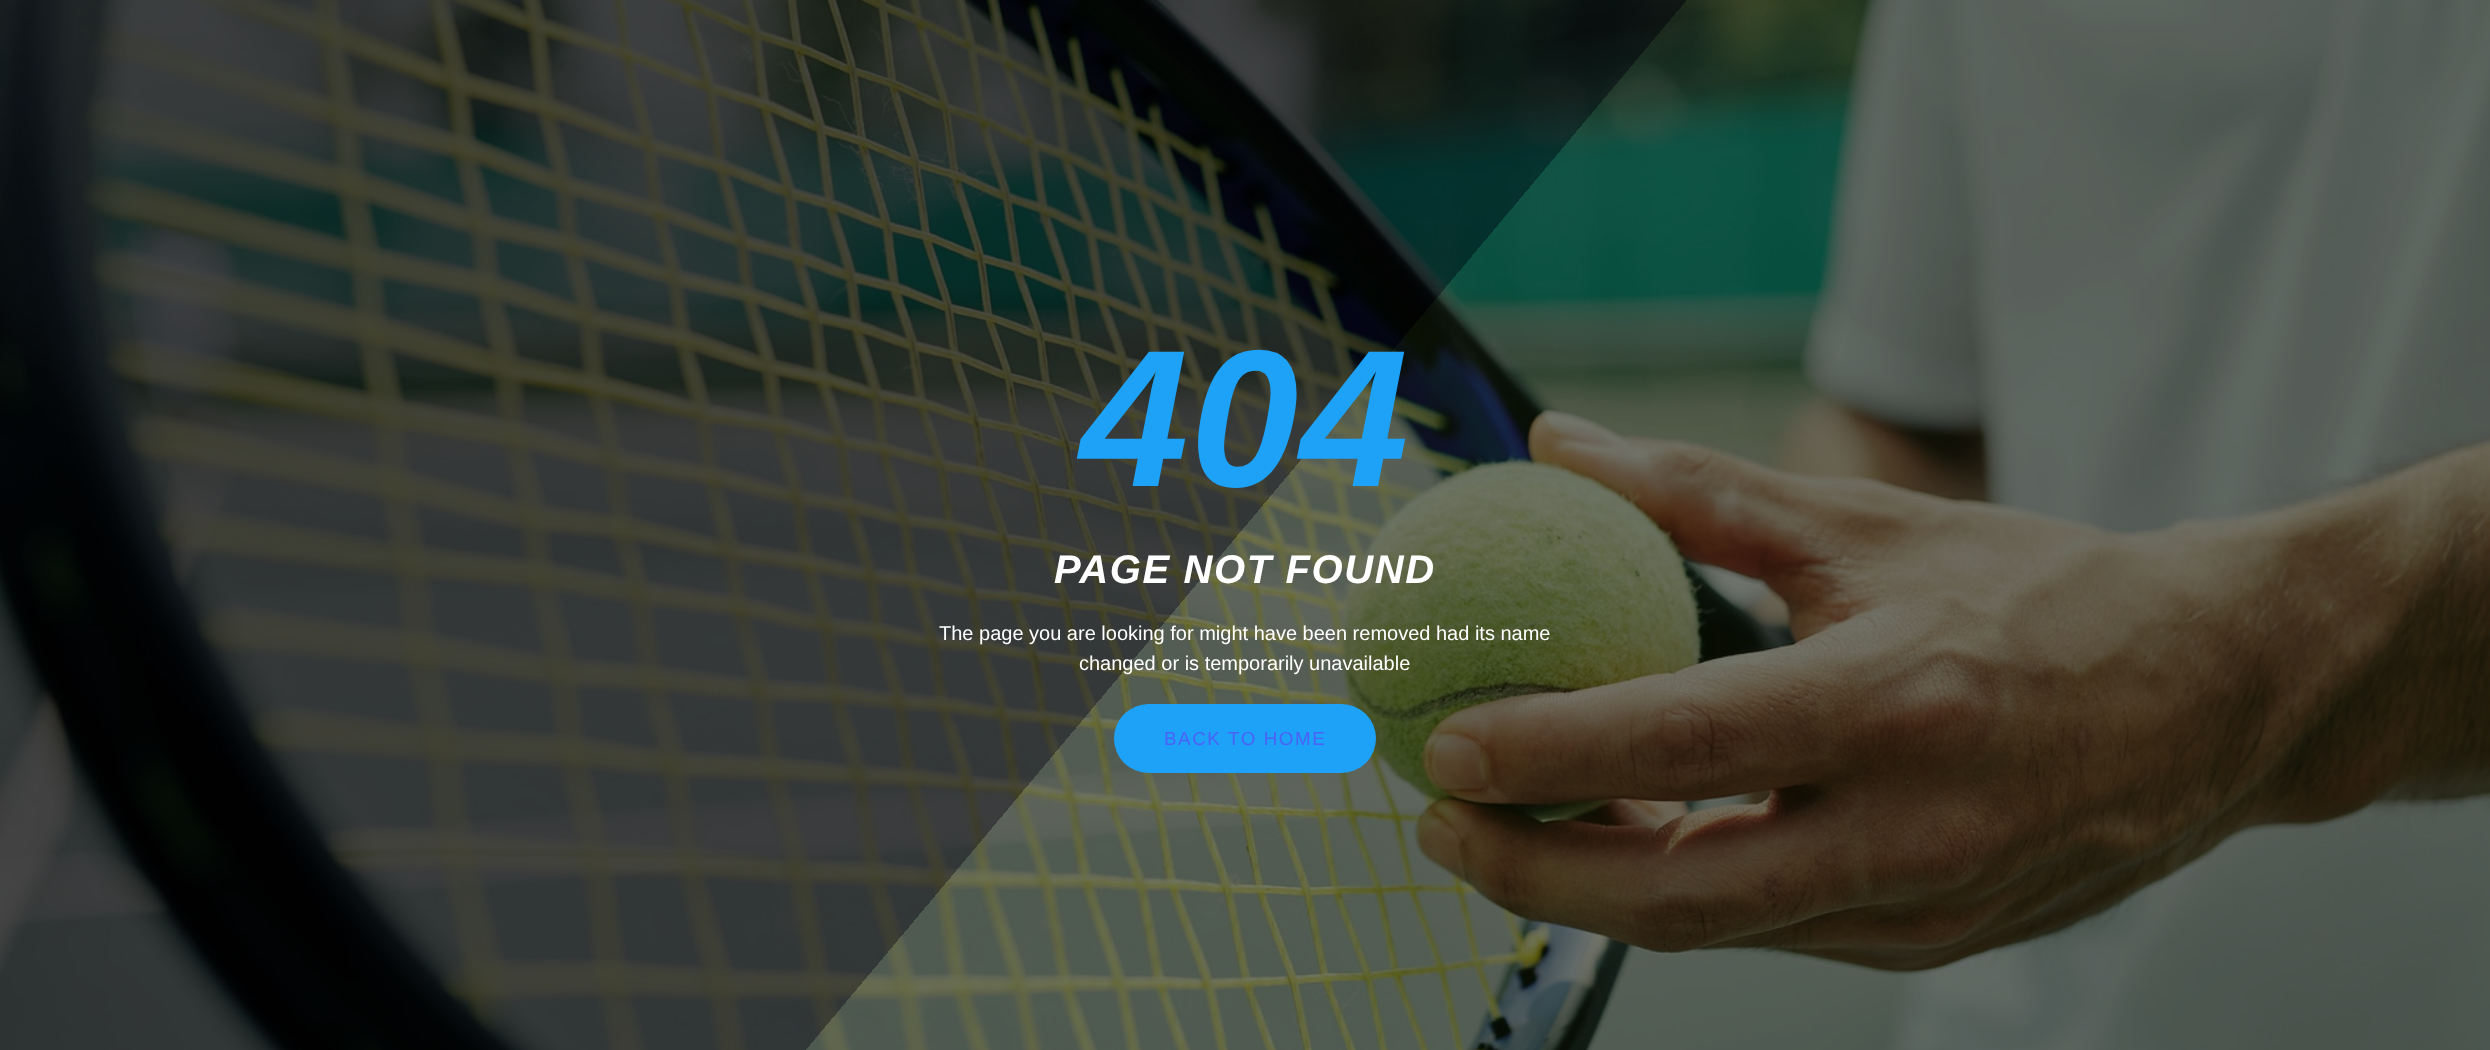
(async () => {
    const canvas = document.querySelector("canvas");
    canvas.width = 2490;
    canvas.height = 1050;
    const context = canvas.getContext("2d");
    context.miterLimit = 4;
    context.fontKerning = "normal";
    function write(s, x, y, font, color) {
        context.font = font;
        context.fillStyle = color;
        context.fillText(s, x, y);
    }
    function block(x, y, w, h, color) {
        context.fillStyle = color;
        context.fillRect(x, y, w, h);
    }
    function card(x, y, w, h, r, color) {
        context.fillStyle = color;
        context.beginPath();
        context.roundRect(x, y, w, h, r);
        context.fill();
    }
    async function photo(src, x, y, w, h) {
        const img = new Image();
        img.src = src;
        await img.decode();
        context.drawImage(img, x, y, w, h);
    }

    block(0, 0, 2490, 1050, "rgb(255, 255, 255)");
    await photo("media/1.png", 0, 0, 2490, 1050);
    context.letterSpacing = "1.6px";
    write("404", 1080, 486, "italic bold 195px Liberation Sans", "rgb(30, 162, 247)");
    write("PAGE NOT FOUND", 1054, 583, "italic bold 40px Liberation Sans", "rgb(255, 255, 255)");
    context.letterSpacing = "0px";
    write("The page you are looking for might have been removed had its name", 939, 640, "20px Liberation Sans", "rgb(255, 255, 255)");
    write("changed or is temporarily unavailable", 1079, 670, "20px Liberation Sans", "rgb(255, 255, 255)");
    card(1114, 704, 262, 69, 34.5, "rgb(30, 162, 247)");
    context.letterSpacing = "1.6px";
    write("BACK TO HOME", 1164, 745, "18.75px Liberation Sans", "rgb(75, 98, 247)");
})();
